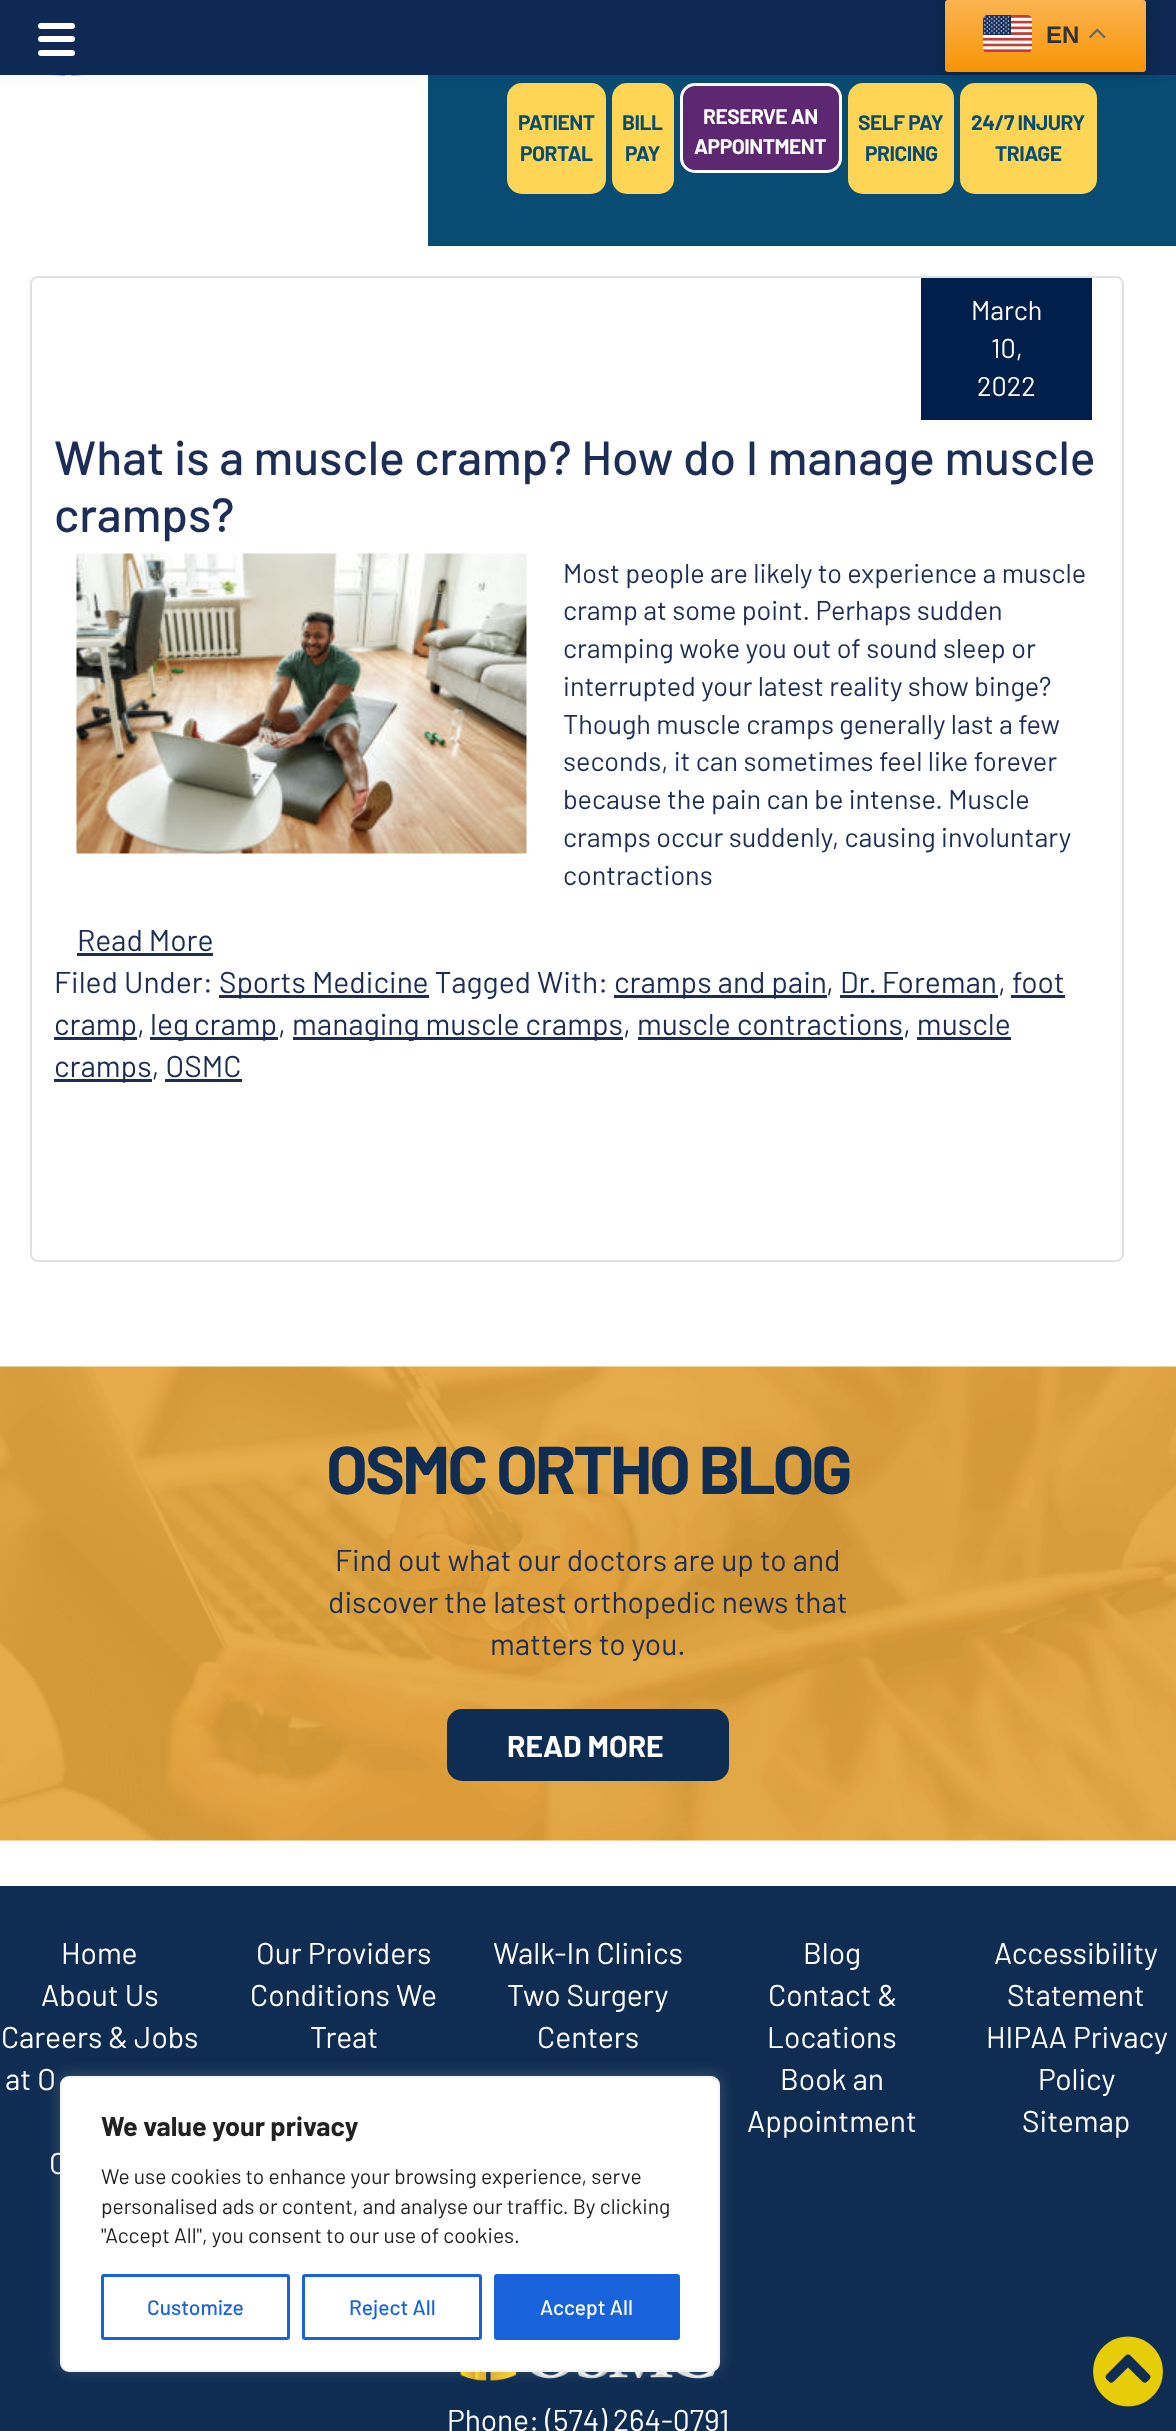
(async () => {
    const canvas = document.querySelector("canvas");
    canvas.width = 1176;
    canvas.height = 2431;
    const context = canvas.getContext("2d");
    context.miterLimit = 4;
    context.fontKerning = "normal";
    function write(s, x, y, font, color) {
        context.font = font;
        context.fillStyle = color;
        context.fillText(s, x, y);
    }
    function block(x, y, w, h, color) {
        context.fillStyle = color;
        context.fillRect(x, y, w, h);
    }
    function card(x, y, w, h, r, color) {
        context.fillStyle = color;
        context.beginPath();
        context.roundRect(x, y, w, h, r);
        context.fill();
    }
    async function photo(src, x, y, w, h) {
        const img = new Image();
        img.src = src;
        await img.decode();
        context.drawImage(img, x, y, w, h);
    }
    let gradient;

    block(0, 0, 1176, 2431, "rgb(255, 255, 255)");
    await photo("media/3.png", 50, 75, 37, 2);
    block(428, 75, 748, 171, "rgb(8, 76, 116)");
    context.fillStyle = "rgb(254, 213, 85)";
    context.beginPath();
    context.roundRect(508.5, 84.5, 96, 108, 13.5);
    context.fill();
    context.strokeStyle = "rgb(254, 213, 85)";
    context.lineWidth = 3;
    context.stroke();
    context.beginPath();
    context.roundRect(613.5, 84.5, 59, 108, 13.5);
    context.fill();
    context.stroke();
    context.fillStyle = "rgb(93, 39, 114)";
    context.beginPath();
    context.roundRect(681.5, 84.5, 159, 87, 13.5);
    context.fill();
    context.strokeStyle = "rgb(255, 255, 255)";
    context.stroke();
    context.fillStyle = "rgb(254, 213, 85)";
    context.beginPath();
    context.roundRect(849.5, 84.5, 103, 108, 13.5);
    context.fill();
    context.strokeStyle = "rgb(254, 213, 85)";
    context.stroke();
    context.beginPath();
    context.roundRect(961.5, 84.5, 134, 108, 13.5);
    context.fill();
    context.stroke();
    context.fillStyle = "rgba(0, 0, 0, 0.05)";
    context.filter = "blur(7.5px)";
    context.beginPath();
    context.rect(-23, 0, 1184, 75);
    context.fill();
    context.filter = "none";
    block(0, 0, 1176, 75, "rgb(14, 42, 84)");
    context.fillStyle = "rgba(0, 0, 0, 0.3)";
    context.filter = "blur(7px)";
    context.beginPath();
    context.roundRect(945, 0, 201, 72, 3);
    context.fill();
    context.filter = "none";
    gradient = context.createLinearGradient(1046, 0, 1046, 72);
    gradient.addColorStop(0, "rgb(251, 180, 80)");
    gradient.addColorStop(1, "rgb(248, 148, 6)");
    context.fillStyle = gradient;
    context.beginPath();
    context.roundRect(945, 0, 201, 72, 3);
    context.fill();
    await photo("media/1.png", 983, 15, 49, 37);
    write("EN", 1046, 43, "bold 24px Liberation Sans", "rgb(51, 51, 51)");
    await photo("media/2.png", 1089, 28, 17, 11);
    card(38, 23, 37, 6, 3, "rgb(255, 255, 255)");
    card(38, 36, 37, 6, 3, "rgb(255, 255, 255)");
    card(38, 50, 37, 6, 3, "rgb(255, 255, 255)");
    context.letterSpacing = "-0.5px";
    write("PATIENT", 518, 130, "bold 21px Barlow", "rgb(8, 76, 116)");
    write("PORTAL", 520, 161, "bold 21px Barlow", "rgb(8, 76, 116)");
    write("BILL", 622, 130, "bold 21px Barlow", "rgb(8, 76, 116)");
    write("PAY", 625, 161, "bold 21px Barlow", "rgb(8, 76, 116)");
    write("RESERVE AN", 703, 124, "bold 21px Barlow", "rgb(255, 255, 255)");
    write("APPOINTMENT", 694, 154, "bold 21px Barlow", "rgb(255, 255, 255)");
    write("SELF PAY", 858, 130, "bold 21px Barlow", "rgb(8, 76, 116)");
    write("PRICING", 865, 161, "bold 21px Barlow", "rgb(8, 76, 116)");
    write("24/7 INJURY", 971, 130, "bold 21px Barlow", "rgb(8, 76, 116)");
    write("TRIAGE", 995, 161, "bold 21px Barlow", "rgb(8, 76, 116)");
    context.beginPath();
    context.roundRect(31, 277, 1092, 984, 7);
    context.strokeStyle = "rgb(225, 225, 225)";
    context.lineWidth = 2;
    context.stroke();
    block(921, 278, 171, 142, "rgb(1, 31, 75)");
    context.letterSpacing = "0px";
    write("March", 971, 320, "27px Barlow", "rgb(255, 255, 255)");
    write("10,", 991, 358, "27px Barlow", "rgb(255, 255, 255)");
    write("2022", 977, 396, "27px Barlow", "rgb(255, 255, 255)");
    write("What is a muscle cramp? How do I manage muscle", 54, 475, "500 48px Barlow", "rgb(29, 45, 86)");
    write("cramps?", 54, 532, "500 48px Barlow", "rgb(29, 45, 86)");
    await photo("media/4.png", 76, 553, 451, 301);
    write("Most people are likely to experience a muscle", 563, 583, "27px Barlow", "rgb(29, 45, 86)");
    write("cramp at some point. Perhaps sudden", 563, 620, "27px Barlow", "rgb(29, 45, 86)");
    write("cramping woke you out of sound sleep or", 563, 658, "27px Barlow", "rgb(29, 45, 86)");
    write("interrupted your latest reality show binge?", 563, 696, "27px Barlow", "rgb(29, 45, 86)");
    write("Though muscle cramps generally last a few", 563, 734, "27px Barlow", "rgb(29, 45, 86)");
    write("seconds, it can sometimes feel like forever", 563, 771, "27px Barlow", "rgb(29, 45, 86)");
    write("because the pain can be intense. Muscle", 563, 809, "27px Barlow", "rgb(29, 45, 86)");
    write("cramps occur suddenly, causing involuntary", 563, 847, "27px Barlow", "rgb(29, 45, 86)");
    write("contractions", 563, 885, "27px Barlow", "rgb(29, 45, 86)");
    write("Read More", 77, 951, "30px Barlow", "rgb(29, 45, 86)");
    block(77, 953, 136, 3, "rgb(29, 45, 86)");
    write("Filed Under:", 54, 993, "30px Barlow", "rgb(29, 45, 86)");
    block(219, 995, 210, 3, "rgb(29, 45, 86)");
    write("Sports Medicine Tagged With:", 219, 993, "30px Barlow", "rgb(29, 45, 86)");
    block(614, 995, 213, 3, "rgb(29, 45, 86)");
    write("cramps and pain", 614, 993, "30px Barlow", "rgb(29, 45, 86)");
    write(",", 826, 993, "30px Barlow", "rgb(29, 45, 86)");
    block(840, 995, 158, 3, "rgb(29, 45, 86)");
    context.wordSpacing = "-1px";
    write("Dr. Foreman", 840, 993, "30px Barlow", "rgb(29, 45, 86)");
    context.wordSpacing = "0px";
    write(", foot", 998, 993, "30px Barlow", "rgb(29, 45, 86)");
    block(1011, 995, 54, 3, "rgb(29, 45, 86)");
    block(54, 1037, 83, 3, "rgb(29, 45, 86)");
    write("cramp", 54, 1035, "30px Barlow", "rgb(29, 45, 86)");
    write(",", 137, 1035, "30px Barlow", "rgb(29, 45, 86)");
    block(150, 1037, 128, 3, "rgb(29, 45, 86)");
    context.wordSpacing = "-1px";
    write("leg cramp", 150, 1035, "30px Barlow", "rgb(29, 45, 86)");
    context.wordSpacing = "0px";
    write(",", 278, 1035, "30px Barlow", "rgb(29, 45, 86)");
    block(293, 1037, 330, 3, "rgb(29, 45, 86)");
    write("managing muscle cramps, muscle contractions, muscle", 292, 1035, "30px Barlow", "rgb(29, 45, 86)");
    block(638, 1037, 265, 3, "rgb(29, 45, 86)");
    block(917, 1037, 94, 3, "rgb(29, 45, 86)");
    block(54, 1079, 98, 3, "rgb(29, 45, 86)");
    write("cramps, OSMC", 54, 1077, "30px Barlow", "rgb(29, 45, 86)");
    block(165, 1079, 77, 3, "rgb(29, 45, 86)");
    await photo("media/5.png", 0, 1366, 1176, 475);
    context.letterSpacing = "-3px";
    write("OSMC ORTHO BLOG", 326, 1494, "bold 67.5px Barlow", "rgb(15, 45, 83)");
    context.letterSpacing = "0px";
    write("Find out what our doctors are up to and", 335, 1571, "30px Barlow", "rgb(29, 45, 86)");
    write("discover the latest orthopedic news that", 328, 1613, "30px Barlow", "rgb(29, 45, 86)");
    write("matters to you.", 490, 1655, "30px Barlow", "rgb(29, 45, 86)");
    card(447, 1709, 282, 72, 15, "rgb(15, 45, 83)");
    write("READ MORE", 507, 1757, "bold 30px Barlow", "rgb(255, 255, 255)");
    block(0, 1886, 1176, 545, "rgb(15, 45, 83)");
    write("Home", 61, 1964, "30px Barlow", "rgb(255, 255, 255)");
    write("About Us", 41, 2006, "30px Barlow", "rgb(255, 255, 255)");
    write("Careers & Jobs", 1, 2048, "30px Barlow", "rgb(255, 255, 255)");
    write("at O", 5, 2090, "30px Barlow", "rgb(255, 255, 255)");
    write("C", 49, 2174, "30px Barlow", "rgb(255, 255, 255)");
    write("Our Providers", 256, 1964, "30px Barlow", "rgb(255, 255, 255)");
    write("Conditions We", 250, 2006, "30px Barlow", "rgb(255, 255, 255)");
    write("Treat", 310, 2048, "30px Barlow", "rgb(255, 255, 255)");
    write("Walk-In Clinics", 493, 1964, "30px Barlow", "rgb(255, 255, 255)");
    write("Two Surgery", 507, 2006, "30px Barlow", "rgb(255, 255, 255)");
    write("Centers", 537, 2048, "30px Barlow", "rgb(255, 255, 255)");
    write("Blog", 803, 1964, "30px Barlow", "rgb(255, 255, 255)");
    write("Contact &", 768, 2006, "30px Barlow", "rgb(255, 255, 255)");
    write("Locations", 767, 2048, "30px Barlow", "rgb(255, 255, 255)");
    write("Book an", 780, 2090, "30px Barlow", "rgb(255, 255, 255)");
    write("Appointment", 747, 2132, "30px Barlow", "rgb(255, 255, 255)");
    write("Accessibility", 994, 1964, "30px Barlow", "rgb(255, 255, 255)");
    write("Statement", 1007, 2006, "30px Barlow", "rgb(255, 255, 255)");
    write("HIPAA Privacy", 986, 2048, "30px Barlow", "rgb(255, 255, 255)");
    write("Policy", 1038, 2090, "30px Barlow", "rgb(255, 255, 255)");
    write("Sitemap", 1022, 2132, "30px Barlow", "rgb(255, 255, 255)");
    await photo("media/6.png", 460, 2370, 256, 11);
    write("Phone: (574) 264-0791", 447, 2431, "30px Barlow", "rgb(255, 255, 255)");
    context.fillStyle = "rgba(172, 171, 171, 0.3)";
    context.filter = "blur(7.5px)";
    context.beginPath();
    context.roundRect(60, 2075, 660, 295, 9);
    context.fill();
    context.filter = "none";
    context.fillStyle = "rgb(255, 255, 255)";
    context.beginPath();
    context.roundRect(61, 2077, 658, 294, 8);
    context.fill();
    context.strokeStyle = "rgb(244, 244, 244)";
    context.stroke();
    write("We value your privacy", 101, 2136, "bold 27px Barlow", "rgb(33, 33, 33)");
    write("We use cookies to enhance your browsing experience, serve", 101, 2184, "21px Barlow", "rgb(33, 33, 33)");
    write("personalised ads or content, and analyse our traffic. By clicking", 101, 2214, "21px Barlow", "rgb(33, 33, 33)");
    write("\"Accept All\", you consent to our use of cookies.", 101, 2243, "21px Barlow", "rgb(33, 33, 33)");
    context.beginPath();
    context.roundRect(102.5, 2275.5, 186, 63, 1.5);
    context.strokeStyle = "rgb(24, 99, 220)";
    context.lineWidth = 3;
    context.stroke();
    write("Customize", 147, 2315, "500 21px Barlow", "rgb(24, 99, 220)");
    context.beginPath();
    context.roundRect(303.5, 2275.5, 177, 63, 1.5);
    context.stroke();
    write("Reject All", 349, 2315, "500 21px Barlow", "rgb(24, 99, 220)");
    context.beginPath();
    context.roundRect(495.5, 2275.5, 183, 63, 1.5);
    context.fill();
    context.stroke();
    write("Accept All", 540, 2315, "500 21px Barlow", "rgb(255, 255, 255)");
    await photo("media/7.png", 1093, 2336, 70, 71);
})();
